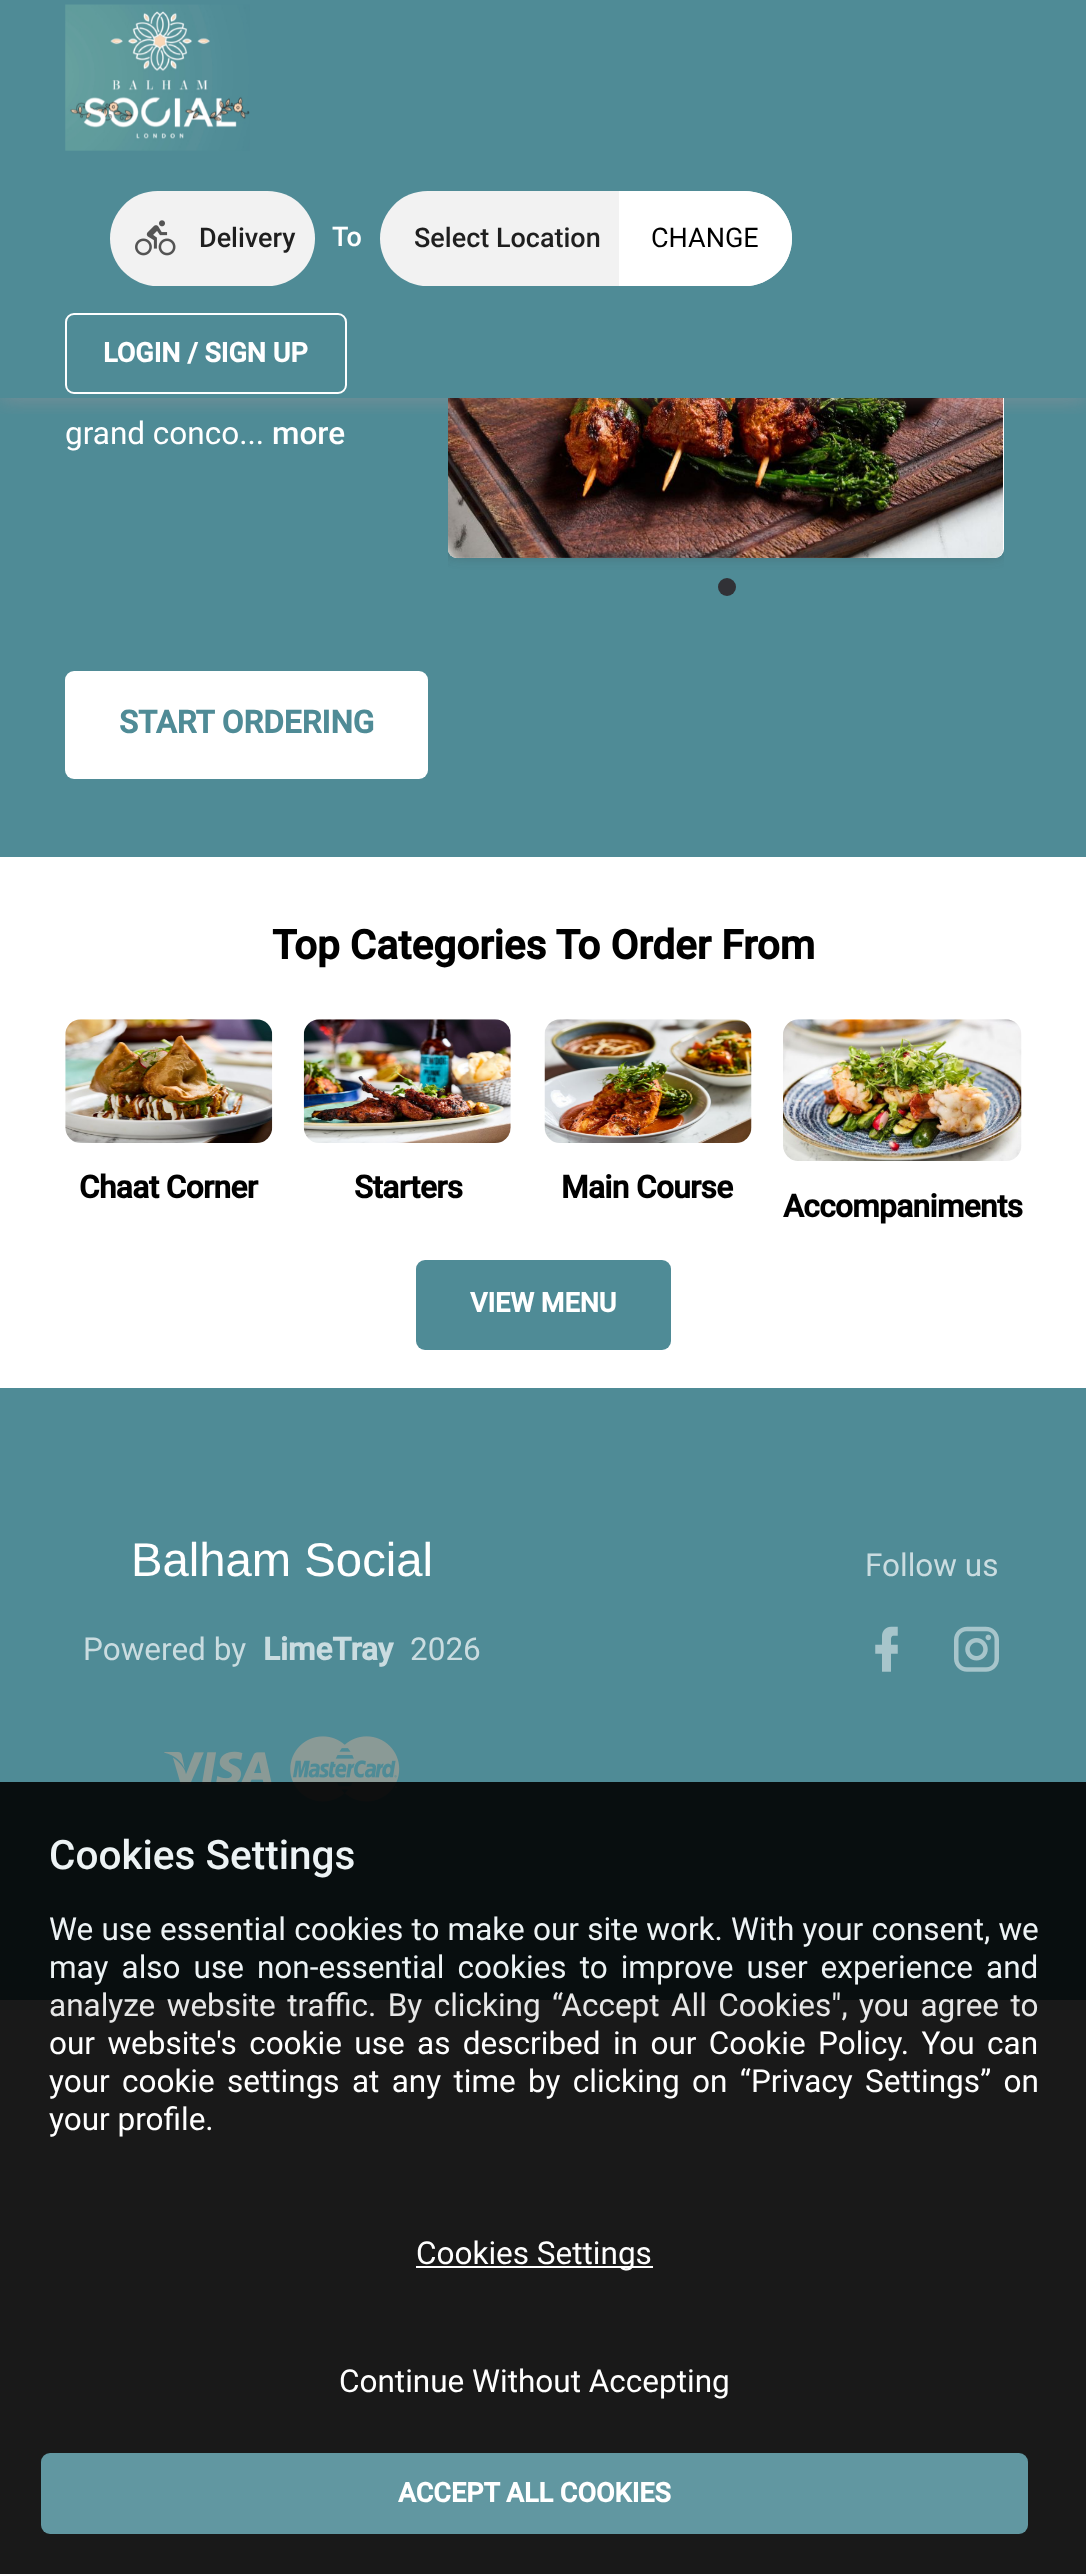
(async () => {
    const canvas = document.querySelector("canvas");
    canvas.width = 1086;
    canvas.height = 2574;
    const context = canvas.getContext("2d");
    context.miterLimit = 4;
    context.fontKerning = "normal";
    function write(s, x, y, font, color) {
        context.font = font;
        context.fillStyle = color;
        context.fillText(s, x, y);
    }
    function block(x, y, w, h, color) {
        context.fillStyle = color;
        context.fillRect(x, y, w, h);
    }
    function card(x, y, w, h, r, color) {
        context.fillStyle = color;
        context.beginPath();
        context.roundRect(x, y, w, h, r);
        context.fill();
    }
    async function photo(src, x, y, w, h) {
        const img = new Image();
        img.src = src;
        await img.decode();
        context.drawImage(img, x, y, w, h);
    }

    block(0, 0, 1086, 2574, "rgb(255, 255, 255)");
    block(0, 398, 1086, 459, "rgb(79, 139, 150)");
    context.save();
    context.beginPath();
    context.rect(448, 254, 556, 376);
    context.clip();
    context.fillStyle = "rgba(51, 51, 51, 0.25)";
    context.filter = "blur(5.5px)";
    context.beginPath();
    context.roundRect(-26, 254, 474, 304, 9);
    context.fill();
    context.filter = "none";
    context.filter = "blur(5.5px)";
    context.beginPath();
    context.roundRect(448, 254, 556, 304, 9);
    context.fill();
    context.filter = "none";
    context.restore();
    card(448, 254, 556, 304, 9, "rgb(255, 255, 255)");
    block(0, 0, 1086, 398, "rgb(79, 139, 150)");
    await photo("media/3.png", 448, 398, 555, 160);
    context.save();
    context.beginPath();
    context.rect(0, 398, 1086, 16);
    context.clip();
    context.fillStyle = "rgba(250, 155, 155, 0.29)";
    context.filter = "blur(11px)";
    context.beginPath();
    context.rect(0, 0, 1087, 398);
    context.fill();
    context.filter = "none";
    context.restore();
    await photo("media/1.png", 65, 4, 185, 147);
    card(110, 191, 205, 95, 47.5, "rgb(242, 242, 242)");
    await photo("media/2.png", 135, 220, 41, 36);
    write("Delivery", 199, 247, "500 27px Roboto", "rgb(31, 31, 31)");
    write("To", 332, 246, "500 27px Roboto", "rgb(255, 255, 255)");
    card(380, 191, 412, 95, 47.5, "rgb(242, 242, 242)");
    write("Select Location", 414, 247, "500 27px Roboto", "rgb(31, 31, 31)");
    context.fillStyle = "rgb(255, 255, 255)";
    context.beginPath();
    context.roundRect(619, 191, 173, 95, [0, 47.5, 47.5, 0]);
    context.fill();
    write("CHANGE", 651, 247, "27px Roboto", "rgb(0, 0, 0)");
    context.beginPath();
    context.roundRect(66, 314, 280, 79, 8);
    context.strokeStyle = "rgb(255, 255, 255)";
    context.lineWidth = 2;
    context.stroke();
    write("LOGIN / SIGN UP", 103, 362, "bold 27px Roboto", "rgb(255, 255, 255)");
    context.fillStyle = "rgb(49, 49, 54)";
    context.beginPath();
    context.arc(727, 587, 9, 0, Math.PI * 2);
    context.fill();
    write("grand conco...", 65, 444, "31.5px Roboto", "rgb(255, 255, 255)");
    write("more", 272, 444, "500 31.5px Roboto", "rgb(255, 255, 255)");
    card(65, 671, 363, 108, 9, "rgb(255, 255, 255)");
    write("START ORDERING", 119, 733, "bold 31.5px Roboto", "rgb(79, 139, 150)");
    write("Top Categories To Order From", 272, 959, "bold 40.5px Roboto", "rgb(0, 0, 0)");
    await photo("media/4.png", 65, 1019, 208, 124);
    context.letterSpacing = "-0.6px";
    write("Chaat Corner", 79, 1198, "bold 31.5px Roboto", "rgb(0, 0, 0)");
    await photo("media/5.png", 303, 1019, 208, 124);
    write("Starters", 354, 1198, "bold 31.5px Roboto", "rgb(0, 0, 0)");
    await photo("media/6.png", 544, 1019, 208, 124);
    write("Main Course", 561, 1198, "bold 31.5px Roboto", "rgb(0, 0, 0)");
    await photo("media/7.png", 783, 1019, 239, 142);
    write("Accompaniments", 783, 1217, "bold 31.5px Roboto", "rgb(0, 0, 0)");
    card(416, 1260, 255, 90, 9, "rgb(79, 139, 150)");
    context.letterSpacing = "0px";
    write("VIEW MENU", 470, 1312, "bold 27px Roboto", "rgb(255, 255, 255)");
    block(0, 1388, 1086, 612, "rgb(79, 139, 150)");
    write("Balham Social", 131, 1576, "47.25px Liberation Sans", "rgb(255, 255, 255)");
    write("Powered by", 83, 1660, "31.5px Roboto", "rgb(202, 220, 224)");
    write("LimeTray", 263, 1660, "bold 31.5px Roboto", "rgb(202, 220, 224)");
    write("2026", 410, 1660, "31.5px Roboto", "rgb(202, 220, 224)");
    await photo("media/8.png", 164, 1751, 108, 34);
    await photo("media/9.png", 290, 1736, 110, 66);
    write("Follow us", 865, 1576, "31.5px Roboto", "rgb(202, 220, 224)");
    await photo("media/10.png", 875, 1626, 23, 46);
    await photo("media/11.png", 954, 1626, 45, 46);
    block(0, 1782, 1086, 792, "rgba(0, 0, 0, 0.9)");
    write("Cookies Settings", 49, 1869, "500 40.5px Roboto", "rgb(237, 243, 245)");
    context.wordSpacing = "0.4px";
    write("We use essential cookies to make our site work. With your consent, we", 49, 1940, "31.5px Roboto", "rgb(237, 243, 245)");
    context.wordSpacing = "5.25px";
    write("may also use non-essential cookies to improve user experience and", 49, 1978, "31.5px Roboto", "rgb(237, 243, 245)");
    context.wordSpacing = "3.6px";
    write("analyze website traffic. By clicking “Accept All Cookies\", you agree to", 49, 2016, "31.5px Roboto", "rgb(232, 232, 232)");
    context.wordSpacing = "4.6px";
    write("our website's cookie use as described in our Cookie Policy. You can", 49, 2054, "31.5px Roboto", "rgb(255, 255, 255)");
    context.wordSpacing = "4.5px";
    write("your cookie settings at any time by clicking on “Privacy Settings” on", 49, 2092, "31.5px Roboto", "rgb(255, 255, 255)");
    context.wordSpacing = "0px";
    write("your profile.", 49, 2130, "31.5px Roboto", "rgb(255, 255, 255)");
    block(416, 2266, 237, 2, "rgb(255, 255, 255)");
    write("Cookies Settings", 416, 2264, "31.5px Roboto", "rgb(255, 255, 255)");
    write("Continue Without Accepting", 339, 2392, "31.5px Roboto", "rgb(255, 255, 255)");
    card(41, 2453, 987, 81, 9, "rgb(97, 151, 161)");
    write("ACCEPT ALL COOKIES", 398, 2502, "bold 27px Roboto", "rgb(255, 255, 255)");
})();
